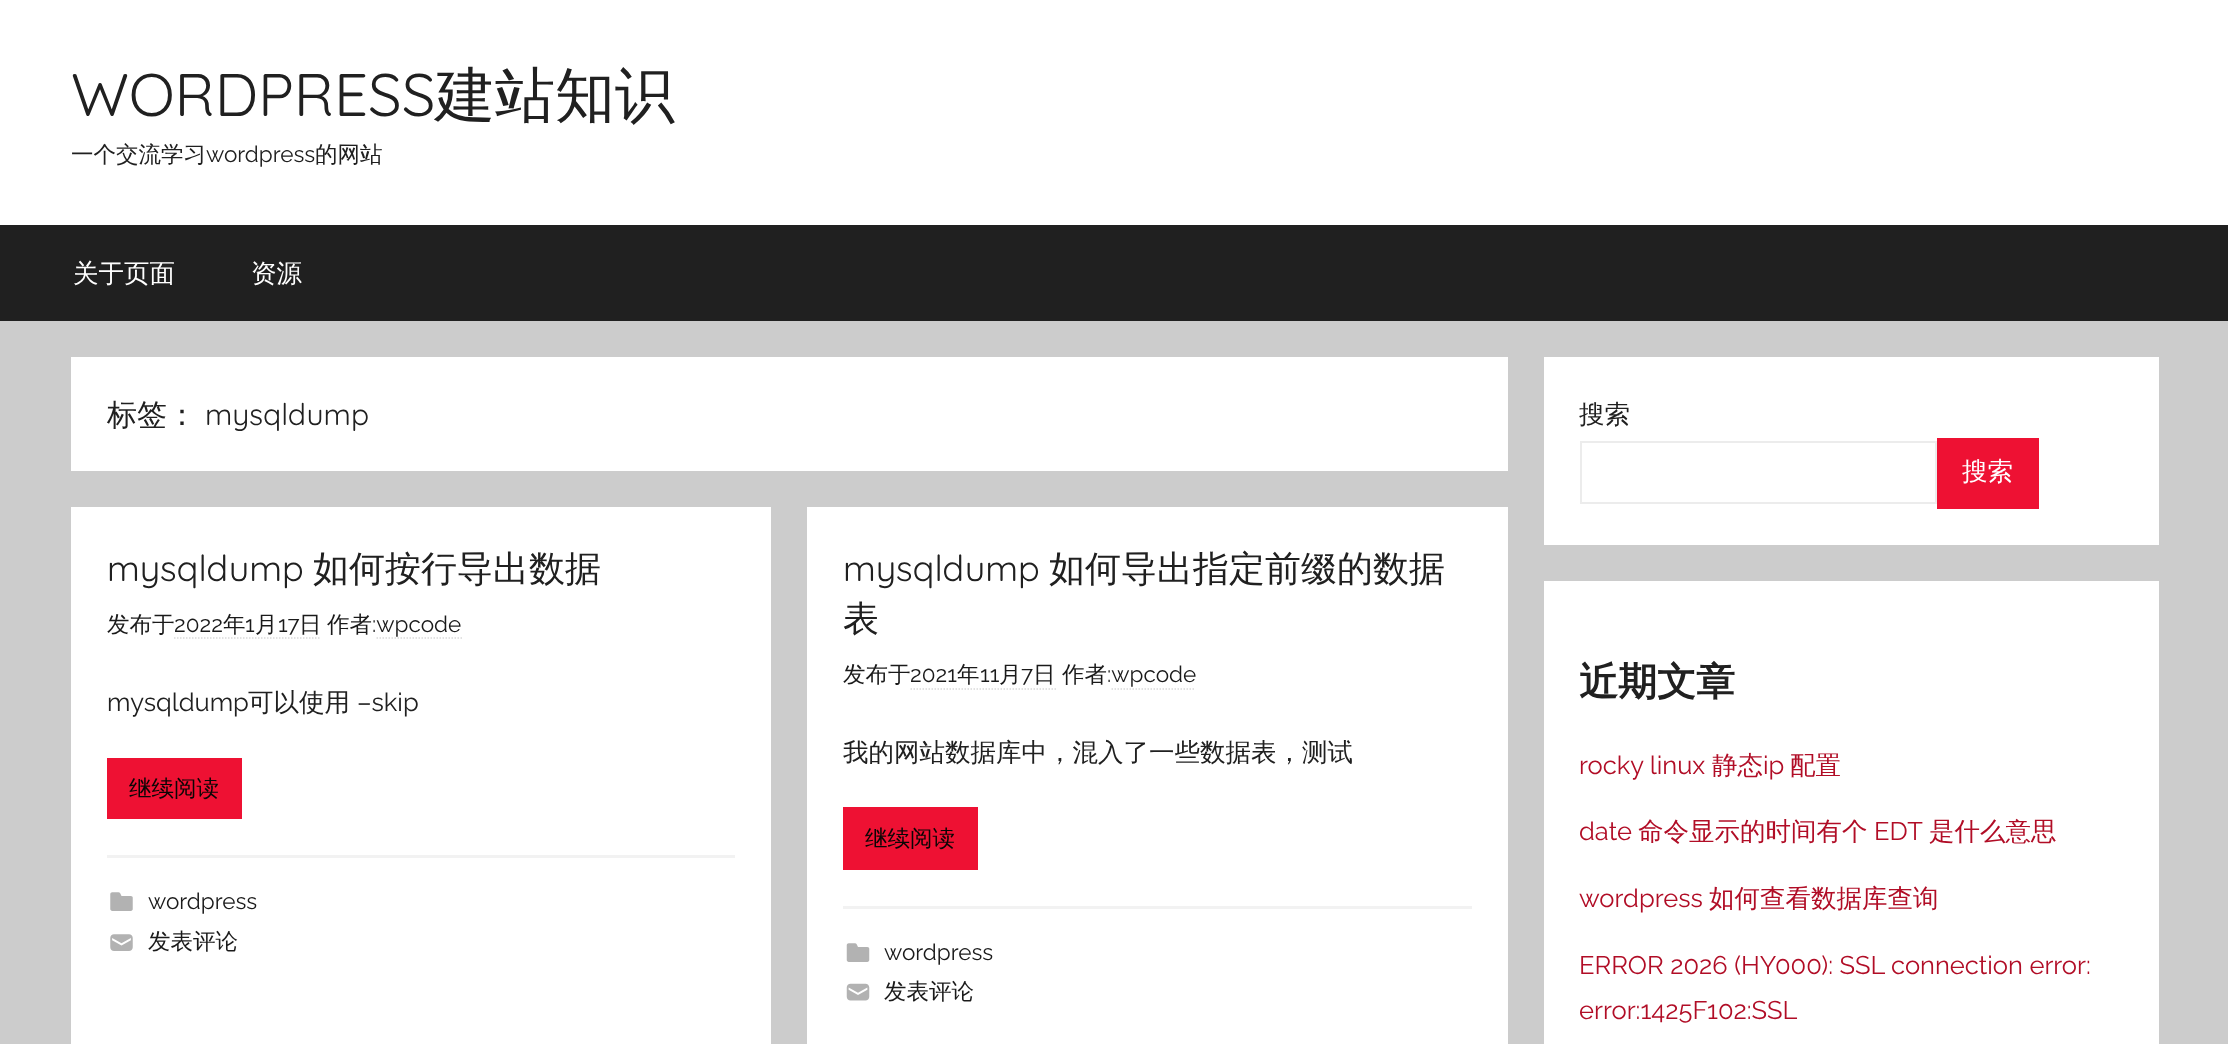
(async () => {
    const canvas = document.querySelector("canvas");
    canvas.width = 2228;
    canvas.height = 1044;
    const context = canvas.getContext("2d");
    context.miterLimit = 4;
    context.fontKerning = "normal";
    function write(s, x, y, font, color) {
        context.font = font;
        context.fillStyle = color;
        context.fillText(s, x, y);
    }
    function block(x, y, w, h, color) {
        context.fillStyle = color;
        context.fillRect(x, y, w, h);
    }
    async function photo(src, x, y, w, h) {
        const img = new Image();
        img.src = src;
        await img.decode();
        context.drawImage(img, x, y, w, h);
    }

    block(0, 0, 2228, 1044, "rgb(204, 204, 204)");
    block(0, 0, 2228, 225, "rgb(255, 255, 255)");
    write("WORDPRESS", 71, 116, "60px Quicksand", "rgb(32, 32, 32)");
    write("建站知识", 435, 116, "500 60px WenQuanYi Zen Hei", "rgb(32, 32, 32)");
    write("一个交流学习", 71, 162, "500 22.5px WenQuanYi Zen Hei", "rgb(32, 32, 32)");
    write("wordpress", 206, 162, "22.5px Raleway", "rgb(32, 32, 32)");
    write("的网站", 315, 162, "500 22.5px WenQuanYi Zen Hei", "rgb(32, 32, 32)");
    block(0, 225, 2228, 96, "rgb(32, 32, 32)");
    write("关于页面", 73, 282, "500 25.5px WenQuanYi Zen Hei", "rgb(255, 255, 255)");
    write("资源", 251, 282, "500 25.5px WenQuanYi Zen Hei", "rgb(255, 255, 255)");
    block(71, 357, 1437, 114, "rgb(255, 255, 255)");
    write("标签：", 107, 425, "500 30px WenQuanYi Zen Hei", "rgb(32, 32, 32)");
    write("mysqldump", 205, 425, "30px Quicksand", "rgb(32, 32, 32)");
    block(71, 507, 700, 537, "rgb(255, 255, 255)");
    write("mysqldump", 107, 581, "36px Quicksand", "rgb(32, 32, 32)");
    write("如何按行导出数据", 313, 581, "500 36px WenQuanYi Zen Hei", "rgb(32, 32, 32)");
    write("发布于", 107, 632, "500 22.5px WenQuanYi Zen Hei", "rgb(26, 26, 26)");
    write("2022", 174, 632, "22.5px Raleway", "rgb(26, 26, 26)");
    write("年", 223, 632, "500 22.5px WenQuanYi Zen Hei", "rgb(26, 26, 26)");
    write("1", 245, 632, "22.5px Raleway", "rgb(26, 26, 26)");
    write("月", 255, 632, "500 22.5px WenQuanYi Zen Hei", "rgb(26, 26, 26)");
    write("17", 278, 632, "22.5px Raleway", "rgb(26, 26, 26)");
    context.beginPath();
    context.moveTo(174, 638);
    context.lineTo(321, 638);
    context.strokeStyle = "rgb(217, 217, 217)";
    context.lineWidth = 1.5;
    context.setLineDash([1.5, 1.5]);
    context.stroke();
    write("日", 299, 632, "500 22.5px WenQuanYi Zen Hei", "rgb(26, 26, 26)");
    write("作者", 327, 632, "500 22.5px WenQuanYi Zen Hei", "rgb(26, 26, 26)");
    write(":wpcode", 372, 632, "22.5px Raleway", "rgb(26, 26, 26)");
    context.beginPath();
    context.moveTo(376.5, 638);
    context.lineTo(462, 638);
    context.stroke();
    write("mysqldump", 107, 711, "25.5px Raleway", "rgb(32, 32, 32)");
    write("可以使用", 248, 711, "500 25.5px WenQuanYi Zen Hei", "rgb(32, 32, 32)");
    write("–skip", 357, 711, "25.5px Raleway", "rgb(32, 32, 32)");
    block(107, 758, 135, 61, "rgb(238, 17, 51)");
    write("继续阅读", 129, 796, "500 22.5px WenQuanYi Zen Hei", "rgb(9, 6, 5)");
    block(107, 855, 628, 3, "rgb(242, 242, 242)");
    await photo("media/1.png", 110, 892, 23, 19);
    write("wordpress", 148, 909, "22.5px Raleway", "rgb(26, 26, 26)");
    await photo("media/2.png", 110, 934, 23, 17);
    write("发表评论", 148, 949, "500 22.5px WenQuanYi Zen Hei", "rgb(26, 26, 26)");
    block(807, 507, 701, 537, "rgb(255, 255, 255)");
    write("mysqldump", 843, 581, "36px Quicksand", "rgb(32, 32, 32)");
    write("如何导出指定前缀的数据", 1049, 581, "500 36px WenQuanYi Zen Hei", "rgb(32, 32, 32)");
    write("表", 843, 631, "500 36px WenQuanYi Zen Hei", "rgb(32, 32, 32)");
    write("发布于", 843, 682, "500 22.5px WenQuanYi Zen Hei", "rgb(26, 26, 26)");
    write("2021", 910, 682, "22.5px Raleway", "rgb(26, 26, 26)");
    write("年", 957, 682, "500 22.5px WenQuanYi Zen Hei", "rgb(26, 26, 26)");
    write("11", 980, 682, "22.5px Raleway", "rgb(26, 26, 26)");
    write("月", 999, 682, "500 22.5px WenQuanYi Zen Hei", "rgb(26, 26, 26)");
    write("7", 1021, 682, "22.5px Raleway", "rgb(26, 26, 26)");
    context.beginPath();
    context.moveTo(910.5, 689);
    context.lineTo(1056, 689);
    context.stroke();
    write("日", 1033, 682, "500 22.5px WenQuanYi Zen Hei", "rgb(26, 26, 26)");
    write("作者", 1062, 682, "500 22.5px WenQuanYi Zen Hei", "rgb(26, 26, 26)");
    write(":wpcode", 1107, 682, "22.5px Raleway", "rgb(26, 26, 26)");
    context.beginPath();
    context.moveTo(1111.5, 689);
    context.lineTo(1195.5, 689);
    context.stroke();
    write("我的网站数据库中，混入了一些数据表，测试", 843, 761, "500 25.5px WenQuanYi Zen Hei", "rgb(32, 32, 32)");
    block(843, 807, 135, 63, "rgb(238, 17, 51)");
    write("继续阅读", 865, 846, "500 22.5px WenQuanYi Zen Hei", "rgb(9, 6, 5)");
    block(843, 906, 629, 3, "rgb(242, 242, 242)");
    await photo("media/3.png", 846, 943, 24, 19);
    write("wordpress", 884, 960, "22.5px Raleway", "rgb(26, 26, 26)");
    await photo("media/4.png", 846, 983, 24, 18);
    write("发表评论", 884, 999, "500 22.5px WenQuanYi Zen Hei", "rgb(26, 26, 26)");
    block(1544, 357, 615, 188, "rgb(255, 255, 255)");
    write("搜索", 1579, 423, "500 25.5px WenQuanYi Zen Hei", "rgb(32, 32, 32)");
    context.strokeStyle = "rgb(236, 236, 236)";
    context.lineWidth = 2;
    context.setLineDash([]);
    context.strokeRect(1581, 442, 355, 61);
    block(1937, 438, 102, 71, "rgb(238, 17, 51)");
    write("搜索", 1962, 480, "500 25.5px WenQuanYi Zen Hei", "rgb(255, 255, 255)");
    block(1544, 581, 615, 463, "rgb(255, 255, 255)");
    write("近期文章", 1579, 695, "bold 39px WenQuanYi Zen Hei", "rgb(32, 32, 32)");
    write("rocky linux", 1579, 774, "25.5px Raleway", "rgb(177, 13, 38)");
    write("静态", 1712, 774, "500 25.5px WenQuanYi Zen Hei", "rgb(177, 13, 38)");
    write("ip", 1763, 774, "25.5px Raleway", "rgb(177, 13, 38)");
    write("配置", 1790, 774, "500 25.5px WenQuanYi Zen Hei", "rgb(177, 13, 38)");
    write("date", 1579, 840, "25.5px Raleway", "rgb(177, 13, 38)");
    write("命令显示的时间有个", 1638, 840, "500 25.5px WenQuanYi Zen Hei", "rgb(177, 13, 38)");
    write("EDT", 1874, 840, "25.5px Raleway", "rgb(177, 13, 38)");
    write("是什么意思", 1929, 840, "500 25.5px WenQuanYi Zen Hei", "rgb(177, 13, 38)");
    write("wordpress", 1579, 907, "25.5px Raleway", "rgb(177, 13, 38)");
    write("如何查看数据库查询", 1709, 907, "500 25.5px WenQuanYi Zen Hei", "rgb(177, 13, 38)");
    write("ERROR 2026 (HY000): SSL connection error:", 1579, 974, "25.5px Raleway", "rgb(177, 13, 38)");
    write("error:1425F102:SSL", 1579, 1019, "25.5px Raleway", "rgb(177, 13, 38)");
})();
